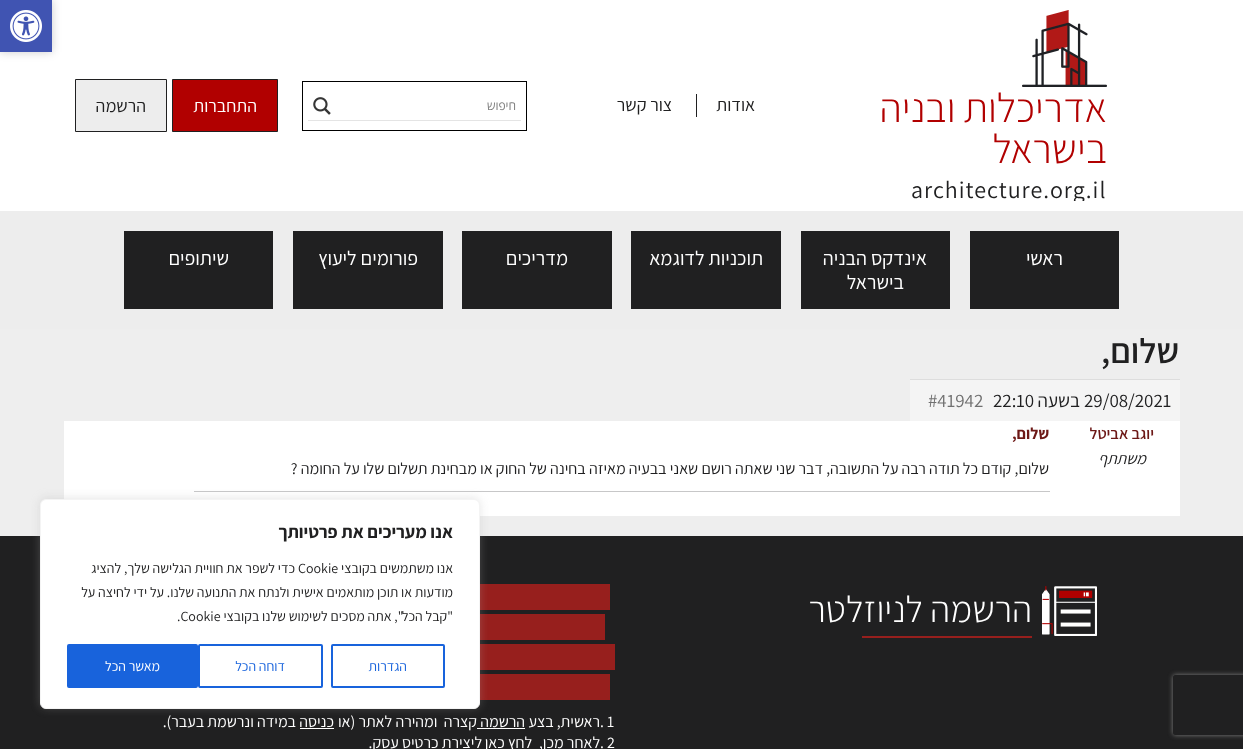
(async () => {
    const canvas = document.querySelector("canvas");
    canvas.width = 1243;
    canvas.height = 749;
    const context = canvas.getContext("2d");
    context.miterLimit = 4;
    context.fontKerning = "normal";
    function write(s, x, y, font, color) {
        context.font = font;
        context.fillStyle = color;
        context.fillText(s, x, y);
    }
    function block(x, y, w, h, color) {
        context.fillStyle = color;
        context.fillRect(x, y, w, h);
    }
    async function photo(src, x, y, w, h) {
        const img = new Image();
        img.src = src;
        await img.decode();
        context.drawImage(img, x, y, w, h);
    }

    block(0, 0, 1243, 749, "rgb(255, 255, 255)");
    context.fillStyle = "rgba(0, 0, 0, 0.2)";
    context.filter = "blur(5px)";
    context.beginPath();
    context.rect(0, 0, 52, 52);
    context.fill();
    context.filter = "none";
    block(0, 0, 52, 52, "rgb(64, 84, 178)");
    await photo("media/1.png", 10, 10, 32, 32);
    await photo("media/2.png", 1022, 10, 85, 77);
    context.direction = "rtl";
    write("אדריכלות ובניה", 1107, 122, "300 41px Assistant", "rgb(177, 0, 0)");
    write("בישראל", 1107, 163, "300 41px Assistant", "rgb(177, 0, 0)");
    context.save();
    context.beginPath();
    context.rect(799, 177, 308, 24);
    context.clip();
    context.letterSpacing = "1px";
    context.direction = "ltr";
    write("architecture.org.il", 911, 198, "24px Assistant", "rgb(32, 32, 33)");
    context.restore();
    block(696, 94, 1, 23, "rgb(32, 32, 33)");
    write("אודות", 755, 111, "18px Assistant", "rgb(32, 32, 33)");
    write("צור קשר", 672, 111, "18px Assistant", "rgb(32, 32, 33)");
    context.strokeStyle = "rgb(0, 0, 0)";
    context.strokeRect(302.5, 81.5, 224, 49);
    block(308, 120, 213, 1, "rgb(228, 228, 228)");
    write("חיפוש", 516, 110, "12px Open Sans", "rgb(125, 125, 125)");
    await photo("media/3.png", 313, 97, 18, 18);
    context.fillStyle = "rgb(177, 0, 0)";
    context.beginPath();
    context.rect(172.5, 79.5, 105, 52);
    context.fill();
    context.strokeStyle = "rgb(32, 32, 33)";
    context.stroke();
    write("התחברות", 257, 112, "18px Assistant", "rgb(255, 255, 255)");
    context.fillStyle = "rgb(237, 237, 237)";
    context.beginPath();
    context.rect(75.5, 79.5, 91, 52);
    context.fill();
    context.stroke();
    write("הרשמה", 146, 112, "18px Assistant", "rgb(32, 32, 33)");
    block(0, 211, 1243, 118, "rgb(237, 237, 237)");
    block(970, 231, 149, 78, "rgb(32, 32, 33)");
    write("ראשי", 1063, 265, "20px Assistant", "rgb(255, 255, 255)");
    block(801, 231, 149, 78, "rgb(32, 32, 33)");
    write("אינדקס הבניה", 927, 265, "20px Assistant", "rgb(255, 255, 255)");
    write("בישראל", 904, 289, "20px Assistant", "rgb(255, 255, 255)");
    block(631, 231, 150, 78, "rgb(32, 32, 33)");
    write("תוכניות לדוגמא", 763, 265, "20px Assistant", "rgb(255, 255, 255)");
    block(462, 231, 150, 78, "rgb(32, 32, 33)");
    write("מדריכים", 568, 265, "20px Assistant", "rgb(255, 255, 255)");
    block(293, 231, 150, 78, "rgb(32, 32, 33)");
    write("פורומים ליעוץ", 418, 265, "20px Assistant", "rgb(255, 255, 255)");
    block(124, 231, 149, 78, "rgb(32, 32, 33)");
    write("שיתופים", 229, 265, "20px Assistant", "rgb(255, 255, 255)");
    block(0, 329, 1243, 207, "rgb(238, 238, 238)");
    write("שלום,", 1179, 363, "600 35px Assistant", "rgb(32, 32, 33)");
    block(910, 380, 270, 41, "rgb(244, 244, 244)");
    block(910, 379, 270, 1, "rgb(221, 221, 221)");
    context.direction = "ltr";
    write("29/08/2021", 1084, 407, "19px Assistant", "rgb(32, 32, 33)");
    context.direction = "rtl";
    write("בשעה", 1080, 407, "19px Assistant", "rgb(32, 32, 33)");
    context.direction = "ltr";
    write("22:10", 993, 407, "19px Assistant", "rgb(32, 32, 33)");
    write("#41942", 928, 407, "19px Assistant", "rgb(112, 112, 112)");
    block(64, 421, 1116, 95, "rgb(255, 255, 255)");
    context.direction = "rtl";
    write("יוגב אביטל", 1154, 439, "600 16px Assistant", "rgb(109, 24, 22)");
    write("משתתף", 1146, 464, "italic 16px Assistant", "rgb(32, 32, 33)");
    write("שלום,", 1049, 439, "bold 16px Assistant", "rgb(109, 24, 22)");
    write("שלום, קודם כל תודה רבה על התשובה, דבר שני שאתה רושם שאני בבעיה מאיזה בחינה של החוק או מבחינת תשלום שלו על החומה ?", 1049, 474, "16px Assistant", "rgb(32, 32, 33)");
    block(194, 491, 856, 1, "rgb(199, 199, 200)");
    block(0, 536, 1243, 213, "rgb(32, 32, 33)");
    block(480, 584, 130, 26, "rgb(151, 31, 29)");
    block(480, 614, 125, 26, "rgb(151, 31, 29)");
    block(480, 644, 135, 26, "rgb(151, 31, 29)");
    block(480, 674, 130, 26, "rgb(151, 31, 29)");
    context.fillStyle = "rgba(172, 171, 171, 0.3)";
    context.filter = "blur(5px)";
    context.beginPath();
    context.roundRect(40, 498, 440, 210, 6);
    context.fill();
    context.filter = "none";
    context.fillStyle = "rgb(255, 255, 255)";
    context.beginPath();
    context.roundRect(40.5, 499.5, 439, 209, 5.5);
    context.fill();
    context.strokeStyle = "rgb(244, 244, 244)";
    context.stroke();
    write("אנו מעריכים את פרטיותך", 453, 538, "bold 18px Assistant", "rgb(32, 32, 33)");
    write("אנו משתמשים בקובצי", 453, 573, "14px Assistant", "rgb(32, 32, 33)");
    context.direction = "ltr";
    write("Cookie", 298, 573, "14px Assistant", "rgb(32, 32, 33)");
    context.direction = "rtl";
    write("כדי לשפר את חוויית הגלישה שלך, להציג", 295, 573, "14px Assistant", "rgb(32, 32, 33)");
    write("מודעות או תוכן מותאמים אישית ולנתח את התנועה שלנו. על ידי לחיצה על", 453, 597, "14px Assistant", "rgb(32, 32, 33)");
    write("\"קבל הכל\", אתה מסכים לשימוש שלנו בקובצי", 453, 621, "14px Assistant", "rgb(32, 32, 33)");
    context.direction = "ltr";
    write(".Cookie", 177, 621, "14px Assistant", "rgb(32, 32, 33)");
    context.beginPath();
    context.roundRect(332, 645, 112, 42, 1);
    context.strokeStyle = "rgb(24, 99, 220)";
    context.lineWidth = 2;
    context.stroke();
    context.direction = "rtl";
    write("הגדרות", 407, 671, "14px Assistant", "rgb(24, 99, 220)");
    context.beginPath();
    context.roundRect(199, 645, 123, 42, 1);
    context.stroke();
    write("דוחה הכל", 285, 671, "14px Assistant", "rgb(24, 99, 220)");
    context.beginPath();
    context.roundRect(68, 645, 129, 42, 1);
    context.fill();
    context.stroke();
    write("מאשר הכל", 160, 671, "14px Assistant", "rgb(255, 255, 255)");
    context.save();
    context.beginPath();
    context.moveTo(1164, 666);
    context.lineTo(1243, 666);
    context.lineTo(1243, 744);
    context.lineTo(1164, 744);
    context.closePath();
    context.moveTo(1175, 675);
    context.lineTo(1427, 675);
    context.bezierCurveTo(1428, 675, 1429, 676, 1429, 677);
    context.lineTo(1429, 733);
    context.bezierCurveTo(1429, 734, 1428, 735, 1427, 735);
    context.lineTo(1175, 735);
    context.bezierCurveTo(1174, 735, 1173, 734, 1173, 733);
    context.lineTo(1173, 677);
    context.bezierCurveTo(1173, 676, 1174, 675, 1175, 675);
    context.closePath();
    context.clip("evenodd");
    context.fillStyle = "rgb(128, 128, 128)";
    context.filter = "blur(2.5px)";
    context.beginPath();
    context.roundRect(1173, 675, 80, 60, 2);
    context.fill();
    context.filter = "none";
    context.restore();
    await photo("media/4.png", 1042, 586, 55, 50);
    write("הרשמה לניוזלטר", 1032, 622, "300 37px Assistant", "rgb(255, 255, 255)");
    block(862, 636, 170, 2, "rgb(151, 31, 29)");
    context.direction = "ltr";
    write(". 1", 600, 727, "16px Assistant", "rgb(255, 255, 255)");
    context.direction = "rtl";
    write("ראשית, בצע", 600, 727, "16px Assistant", "rgb(255, 255, 255)");
    write("הרשמה", 525, 727, "16px Assistant", "rgb(255, 255, 255)");
    block(477, 728, 48, 1, "rgb(255, 255, 255)");
    write("קצרה  ומהירה לאתר (או", 477, 727, "16px Assistant", "rgb(255, 255, 255)");
    write("כניסה", 334, 727, "16px Assistant", "rgb(255, 255, 255)");
    block(300, 728, 34, 1, "rgb(255, 255, 255)");
    write("במידה ונרשמת בעבר).", 296, 727, "16px Assistant", "rgb(255, 255, 255)");
    context.direction = "ltr";
    write(". 2", 600, 748, "16px Assistant", "rgb(255, 255, 255)");
    context.direction = "rtl";
    write("לאחר מכן,", 600, 748, "16px Assistant", "rgb(255, 255, 255)");
    write("לחץ כאן", 532, 748, "16px Assistant", "rgb(255, 255, 255)");
    write("ליצירת כרטיס עסק.", 482, 748, "16px Assistant", "rgb(255, 255, 255)");
})();
